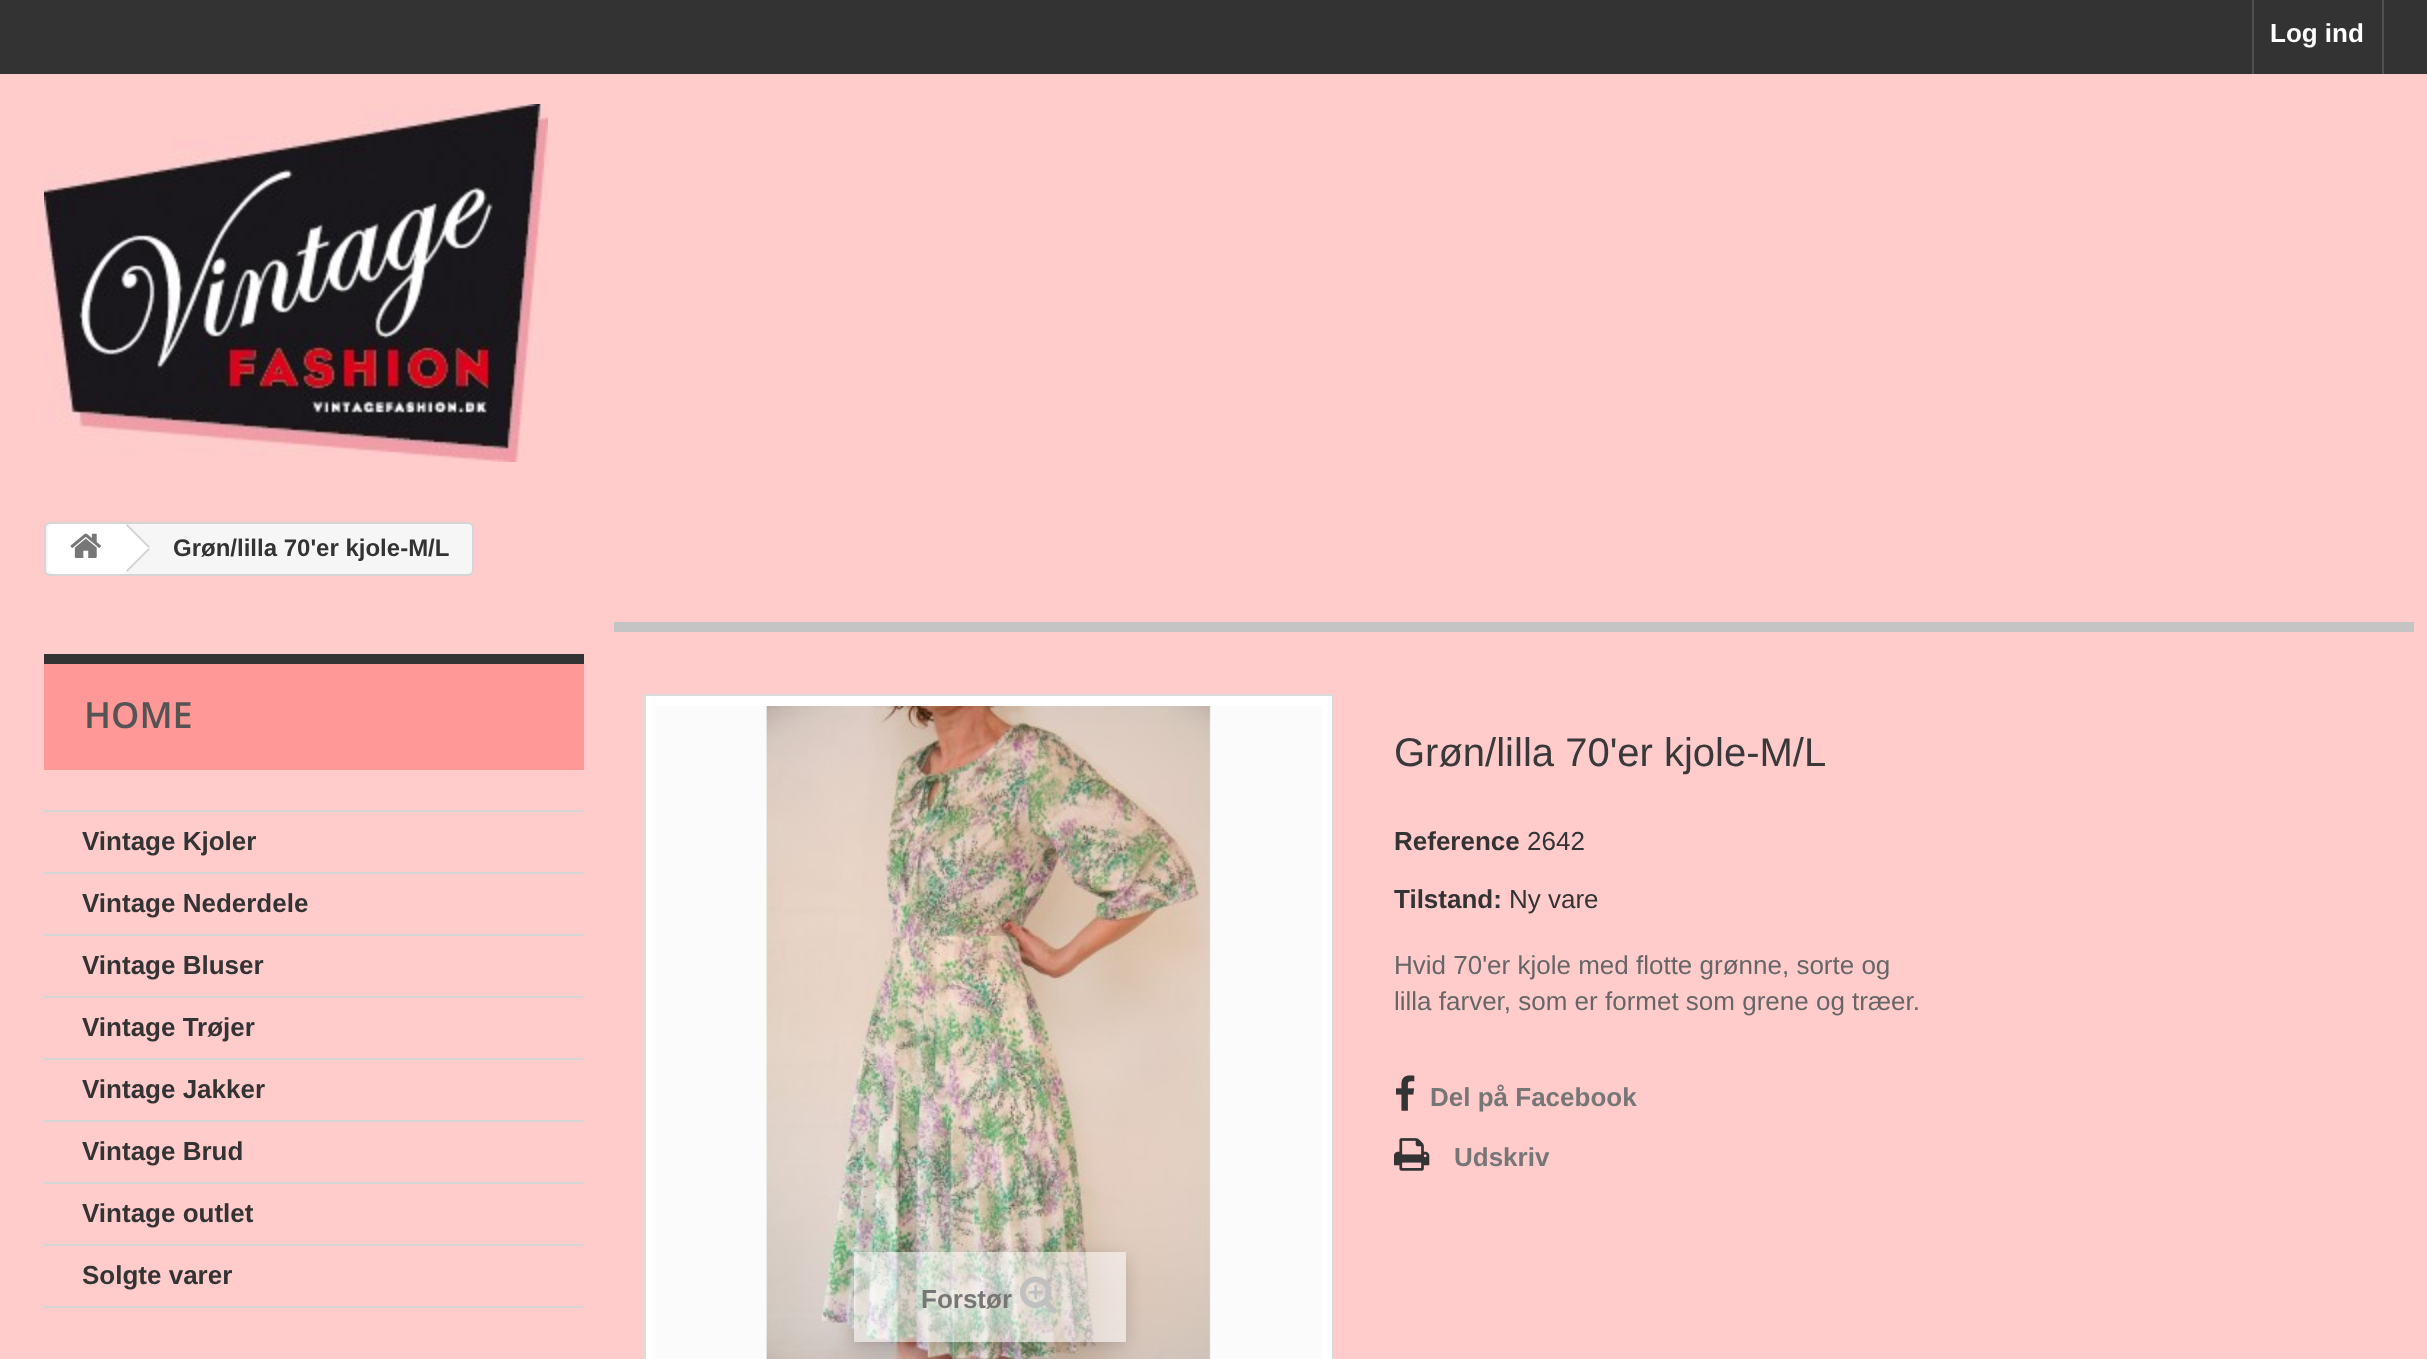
(async () => {
    const canvas = document.querySelector("canvas");
    canvas.width = 2427;
    canvas.height = 1359;
    const context = canvas.getContext("2d");
    context.miterLimit = 4;
    context.fontKerning = "normal";
    function write(s, x, y, font, color) {
        context.font = font;
        context.fillStyle = color;
        context.fillText(s, x, y);
    }
    function block(x, y, w, h, color) {
        context.fillStyle = color;
        context.fillRect(x, y, w, h);
    }
    async function photo(src, x, y, w, h) {
        const img = new Image();
        img.src = src;
        await img.decode();
        context.drawImage(img, x, y, w, h);
    }

    block(0, 0, 2427, 1359, "rgb(255, 204, 203)");
    block(0, 0, 2427, 74, "rgb(51, 51, 51)");
    block(2382, 0, 2, 74, "rgb(81, 81, 81)");
    block(2252, 0, 2, 74, "rgb(81, 81, 81)");
    write("Log ind", 2270, 42, "bold 26px Liberation Sans", "rgb(255, 255, 255)");
    await photo("media/1.png", 44, 104, 504, 358);
    context.fillStyle = "rgb(246, 246, 246)";
    context.beginPath();
    context.roundRect(45, 523, 428, 52, 5);
    context.fill();
    context.strokeStyle = "rgb(214, 212, 212)";
    context.lineWidth = 2;
    context.stroke();
    context.fillStyle = "rgb(255, 255, 255)";
    context.beginPath();
    context.roundRect(48, 524, 76, 50, [6, 0, 0, 6]);
    context.fill();
    await photo("media/2.png", 70, 533, 31, 25);
    context.beginPath();
    context.moveTo(129, 525);
    context.lineTo(149, 545);
    context.bezierCurveTo(150, 547, 150, 549, 149, 551);
    context.lineTo(129, 571);
    context.bezierCurveTo(127, 572, 125, 572, 123, 571);
    context.lineTo(103, 551);
    context.bezierCurveTo(102, 549, 102, 547, 103, 545);
    context.lineTo(123, 525);
    context.bezierCurveTo(125, 524, 127, 524, 129, 525);
    context.closePath();
    context.fill();
    context.fillStyle = "rgb(214, 212, 212)";
    context.beginPath();
    context.moveTo(127.5, 524);
    context.lineTo(150, 546.5);
    context.lineTo(148.5, 548);
    context.lineTo(126, 525.5);
    context.closePath();
    context.moveTo(148.5, 548);
    context.lineTo(150, 549.5);
    context.lineTo(127.5, 572);
    context.lineTo(126, 570.5);
    context.closePath();
    context.fill();
    write("Grøn/lilla 70'er kjole-M/L", 173, 556, "bold 24px Liberation Sans", "rgb(51, 51, 51)");
    block(44, 664, 540, 106, "rgb(255, 152, 150)");
    block(44, 654, 540, 10, "rgb(51, 51, 51)");
    write("HOME", 84, 728, "600 36px Open Sans", "rgb(85, 84, 84)");
    block(44, 810, 540, 2, "rgb(214, 212, 212)");
    block(44, 872, 540, 2, "rgb(214, 212, 212)");
    write("Vintage Kjoler", 82, 850, "bold 26px Liberation Sans", "rgb(51, 51, 51)");
    block(44, 934, 540, 2, "rgb(214, 212, 212)");
    write("Vintage Nederdele", 82, 912, "bold 26px Liberation Sans", "rgb(51, 51, 51)");
    block(44, 996, 540, 2, "rgb(214, 212, 212)");
    write("Vintage Bluser", 82, 974, "bold 26px Liberation Sans", "rgb(51, 51, 51)");
    block(44, 1058, 540, 2, "rgb(214, 212, 212)");
    write("Vintage Trøjer", 82, 1036, "bold 26px Liberation Sans", "rgb(51, 51, 51)");
    block(44, 1120, 540, 2, "rgb(214, 212, 212)");
    write("Vintage Jakker", 82, 1098, "bold 26px Liberation Sans", "rgb(51, 51, 51)");
    block(44, 1182, 540, 2, "rgb(214, 212, 212)");
    write("Vintage Brud", 82, 1160, "bold 26px Liberation Sans", "rgb(51, 51, 51)");
    block(44, 1244, 540, 2, "rgb(214, 212, 212)");
    write("Vintage outlet", 82, 1222, "bold 26px Liberation Sans", "rgb(51, 51, 51)");
    block(44, 1306, 540, 2, "rgb(214, 212, 212)");
    write("Solgte varer", 82, 1284, "bold 26px Liberation Sans", "rgb(51, 51, 51)");
    block(614, 622, 1800, 10, "rgb(196, 196, 196)");
    write("Grøn/lilla 70'er kjole-M/L", 1394, 766, "40px Liberation Sans", "rgb(58, 57, 57)");
    write("Reference", 1394, 850, "bold 26px Liberation Sans", "rgb(51, 51, 51)");
    write("2642", 1527, 850, "26px Liberation Sans", "rgb(51, 51, 51)");
    write("Tilstand:", 1394, 908, "bold 26px Liberation Sans", "rgb(51, 51, 51)");
    write("Ny vare", 1509, 908, "26px Liberation Sans", "rgb(51, 51, 51)");
    write("Hvid 70'er kjole med flotte grønne, sorte og", 1394, 974, "26px Liberation Sans", "rgb(102, 102, 102)");
    write("lilla farver, som er formet som grene og træer.", 1394, 1010, "26px Liberation Sans", "rgb(102, 102, 102)");
    await photo("media/3.png", 1396, 1075, 19, 36);
    write("Del på Facebook", 1430, 1106, "bold 26px Liberation Sans", "rgb(119, 118, 118)");
    await photo("media/4.png", 1394, 1138, 36, 33);
    write("Udskriv", 1454, 1166, "bold 26px Liberation Sans", "rgb(119, 118, 118)");
    context.fillStyle = "rgb(255, 255, 255)";
    context.beginPath();
    context.rect(645, 695, 688, 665);
    context.fill();
    context.strokeStyle = "rgb(219, 219, 219)";
    context.stroke();
    block(656, 706, 666, 653, "rgb(251, 251, 251)");
    await photo("media/5.png", 766, 706, 445, 653);
    context.save();
    context.beginPath();
    context.moveTo(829, 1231);
    context.lineTo(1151, 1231);
    context.lineTo(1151, 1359);
    context.lineTo(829, 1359);
    context.closePath();
    context.moveTo(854, 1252);
    context.lineTo(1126, 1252);
    context.lineTo(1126, 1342);
    context.lineTo(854, 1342);
    context.closePath();
    context.clip("evenodd");
    context.fillStyle = "rgba(0, 0, 0, 0.16)";
    context.filter = "blur(8px)";
    context.beginPath();
    context.rect(854, 1256, 272, 90);
    context.fill();
    context.filter = "none";
    context.restore();
    block(854, 1252, 272, 90, "rgba(255, 255, 255, 0.5)");
    write("Forstør", 921, 1308, "bold 26px Liberation Sans", "rgb(119, 118, 118)");
    await photo("media/6.png", 1020, 1276, 37, 38);
})();
